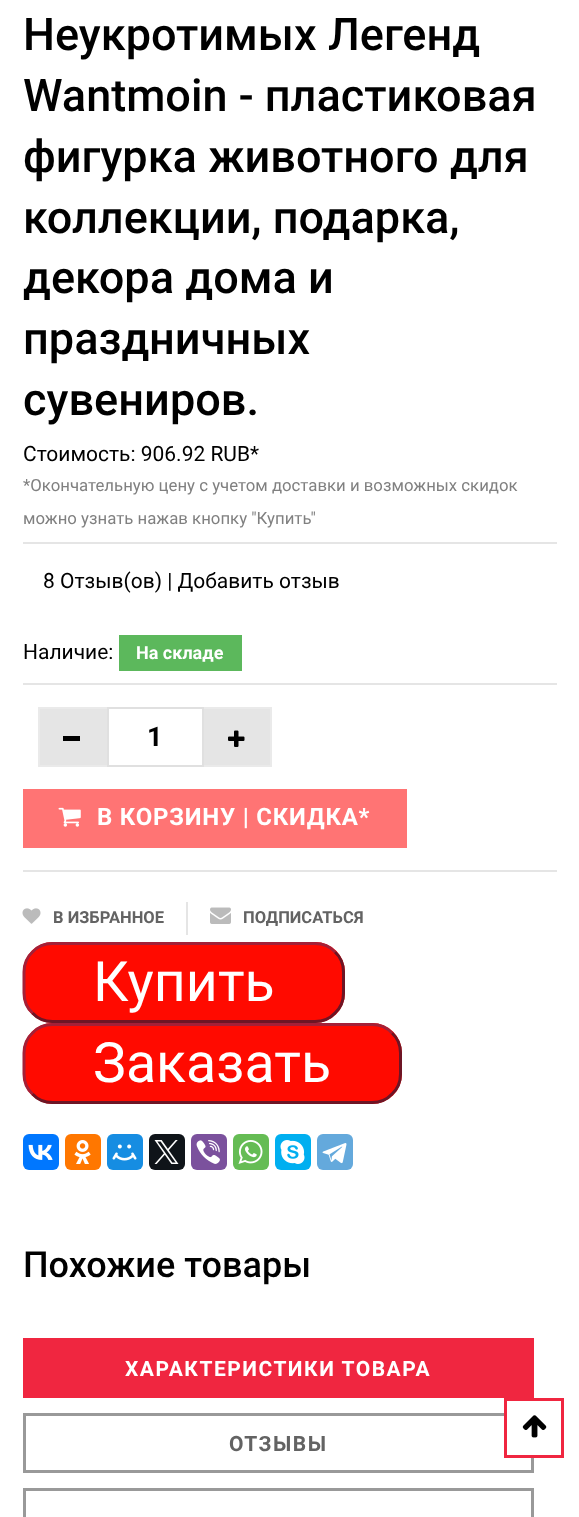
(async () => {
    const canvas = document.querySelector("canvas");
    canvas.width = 579;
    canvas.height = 1517;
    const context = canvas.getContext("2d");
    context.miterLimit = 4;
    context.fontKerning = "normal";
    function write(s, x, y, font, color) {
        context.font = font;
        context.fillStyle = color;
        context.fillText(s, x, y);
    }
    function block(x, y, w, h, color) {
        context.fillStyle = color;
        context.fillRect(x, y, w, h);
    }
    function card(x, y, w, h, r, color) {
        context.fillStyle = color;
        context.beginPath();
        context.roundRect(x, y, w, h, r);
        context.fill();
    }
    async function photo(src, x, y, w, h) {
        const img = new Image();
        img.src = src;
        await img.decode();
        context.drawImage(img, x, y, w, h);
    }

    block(0, 0, 579, 1517, "rgb(255, 255, 255)");
    write("Неукротимых Легенд", 23, 50, "500 45px Roboto", "rgb(0, 0, 0)");
    write("Wantmoin - пластиковая", 23, 111, "500 45px Roboto", "rgb(0, 0, 0)");
    write("фигурка животного для", 23, 172, "500 45px Roboto", "rgb(0, 0, 0)");
    write("коллекции, подарка,", 23, 233, "500 45px Roboto", "rgb(0, 0, 0)");
    write("декора дома и", 23, 293, "500 45px Roboto", "rgb(0, 0, 0)");
    write("праздничных", 23, 354, "500 45px Roboto", "rgb(0, 0, 0)");
    write("сувениров.", 23, 415, "500 45px Roboto", "rgb(0, 0, 0)");
    block(23, 542, 534, 2, "rgb(229, 229, 229)");
    write("Стоимость: 906.92 RUB*", 23, 461, "21px Roboto", "rgb(0, 0, 0)");
    write("*Окончательную цену с учетом доставки и возможных скидок", 23, 491, "16.8px Roboto", "rgb(128, 128, 128)");
    write("можно узнать нажав кнопку \"Купить\"", 23, 524, "16.8px Roboto", "rgb(128, 128, 128)");
    write("8 Отзыв(ов) | Добавить отзыв", 43, 588, "21px Roboto", "rgb(0, 0, 0)");
    write("Наличие:", 23, 659, "21px Roboto", "rgb(0, 0, 0)");
    block(119, 635, 123, 36, "rgb(92, 184, 92)");
    write("На складе", 136, 659, "bold 18px Roboto", "rgb(255, 255, 255)");
    block(23, 683, 534, 2, "rgb(229, 229, 229)");
    block(23, 870, 534, 2, "rgb(229, 229, 229)");
    block(40, 709, 67, 56, "rgb(229, 229, 229)");
    block(38, 707, 69, 2, "rgb(234, 234, 234)");
    block(38, 765, 69, 2, "rgb(234, 234, 234)");
    block(38, 707, 2, 60, "rgb(234, 234, 234)");
    block(63, 736, 17, 5, "rgb(0, 0, 0)");
    context.strokeStyle = "rgb(224, 224, 224)";
    context.lineWidth = 2;
    context.strokeRect(108, 708, 95, 58);
    write("1", 147, 746, "bold 27px Roboto", "rgb(0, 0, 0)");
    block(204, 709, 66, 56, "rgb(229, 229, 229)");
    block(204, 707, 68, 2, "rgb(234, 234, 234)");
    block(270, 707, 2, 60, "rgb(234, 234, 234)");
    block(204, 765, 68, 2, "rgb(234, 234, 234)");
    await photo("media/1.png", 228, 730, 17, 17);
    block(23, 789, 384, 59, "rgb(255, 116, 116)");
    await photo("media/2.png", 58, 807, 23, 20);
    context.letterSpacing = "0.75px";
    write("В КОРЗИНУ | СКИДКА*", 97, 825, "bold 24px Roboto", "rgb(255, 255, 255)");
    block(186, 902, 2, 33, "rgb(229, 229, 229)");
    await photo("media/3.png", 22, 908, 19, 16);
    context.letterSpacing = "0px";
    write("В ИЗБРАННОЕ", 53, 923, "bold 16.5px Roboto", "rgb(99, 99, 99)");
    await photo("media/4.png", 210, 907, 21, 17);
    write("ПОДПИСАТЬСЯ", 243, 923, "bold 16.5px Roboto", "rgb(99, 99, 99)");
    card(23, 942, 322, 81, 30, "rgb(255, 10, 0)");
    context.beginPath();
    context.moveTo(335, 952);
    context.bezierCurveTo(340.5, 957, 343.5, 964.5, 343.5, 972);
    context.lineTo(343.5, 993);
    context.bezierCurveTo(343.5, 1000.5, 340.5, 1008, 335, 1013);
    context.bezierCurveTo(330, 1018.5, 322.5, 1021.5, 315, 1021.5);
    context.lineTo(52.5, 1021.5);
    context.bezierCurveTo(45, 1021.5, 37.5, 1018.5, 32.5, 1013);
    context.strokeStyle = "rgb(109, 21, 37)";
    context.lineWidth = 3;
    context.stroke();
    context.beginPath();
    context.moveTo(32.5, 1013);
    context.bezierCurveTo(27, 1008, 24, 1000.5, 24, 993);
    context.lineTo(24, 972);
    context.bezierCurveTo(24, 964.5, 27, 957, 32.5, 952);
    context.bezierCurveTo(37.5, 946.5, 45, 943.5, 52.5, 943.5);
    context.lineTo(315, 943.5);
    context.bezierCurveTo(322.5, 943.5, 330, 946.5, 335, 952);
    context.strokeStyle = "rgb(164, 32, 55)";
    context.stroke();
    write("Купить", 93, 1001, "55.5px Roboto", "rgb(255, 255, 255)");
    card(23, 1023, 379, 81, 30, "rgb(255, 10, 0)");
    context.beginPath();
    context.moveTo(392, 1033);
    context.bezierCurveTo(397.5, 1038, 400.5, 1045.5, 400.5, 1053);
    context.lineTo(400.5, 1074);
    context.bezierCurveTo(400.5, 1081.5, 397.5, 1089, 392, 1094);
    context.bezierCurveTo(387, 1099.5, 379.5, 1102.5, 372, 1102.5);
    context.lineTo(52.5, 1102.5);
    context.bezierCurveTo(45, 1102.5, 37.5, 1099.5, 32.5, 1094);
    context.strokeStyle = "rgb(109, 21, 37)";
    context.stroke();
    context.beginPath();
    context.moveTo(32.5, 1094);
    context.bezierCurveTo(27, 1089, 24, 1081.5, 24, 1074);
    context.lineTo(24, 1053);
    context.bezierCurveTo(24, 1045.5, 27, 1038, 32.5, 1033);
    context.bezierCurveTo(37.5, 1027.5, 45, 1024.5, 52.5, 1024.5);
    context.lineTo(372, 1024.5);
    context.bezierCurveTo(379.5, 1024.5, 387, 1027.5, 392, 1033);
    context.strokeStyle = "rgb(164, 32, 55)";
    context.stroke();
    write("Заказать", 93, 1082, "55.5px Roboto", "rgb(255, 255, 255)");
    card(23, 1134, 36, 36, 6, "rgb(0, 119, 255)");
    await photo("media/5.png", 28, 1144, 25, 16);
    card(65, 1134, 36, 36, 6, "rgb(255, 119, 0)");
    await photo("media/6.png", 74, 1140, 17, 24);
    card(107, 1134, 36, 36, 6, "rgb(22, 141, 226)");
    await photo("media/7.png", 112, 1144, 25, 17);
    card(149, 1134, 36, 36, 6, "rgb(15, 20, 25)");
    await photo("media/8.png", 154, 1140, 25, 24);
    card(191, 1134, 36, 36, 6, "rgb(123, 81, 157)");
    await photo("media/9.png", 196, 1140, 24, 24);
    card(233, 1134, 36, 36, 6, "rgb(101, 188, 84)");
    await photo("media/10.png", 238, 1140, 25, 24);
    card(275, 1134, 36, 36, 6, "rgb(0, 175, 240)");
    await photo("media/11.png", 280, 1140, 25, 24);
    card(317, 1134, 36, 36, 6, "rgb(100, 169, 220)");
    await photo("media/12.png", 322, 1143, 25, 21);
    write("Похожие товары", 23, 1277, "500 36px Roboto", "rgb(0, 0, 0)");
    block(23, 1338, 511, 60, "rgb(240, 38, 64)");
    context.letterSpacing = "1.5px";
    write("ХАРАКТЕРИСТИКИ ТОВАРА", 125, 1376, "bold 21px Roboto", "rgb(255, 255, 255)");
    context.strokeStyle = "rgb(153, 153, 153)";
    context.strokeRect(24.5, 1414.5, 508, 57);
    write("ОТЗЫВЫ", 229, 1451, "bold 21px Roboto", "rgb(99, 99, 99)");
    context.strokeRect(24.5, 1489.5, 508, 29);
    block(507, 1413, 27, 42, "rgb(255, 255, 255)");
    context.strokeStyle = "rgb(240, 38, 64)";
    context.strokeRect(505.5, 1399.5, 57, 57);
    await photo("media/13.png", 522, 1415, 25, 23);
})();
